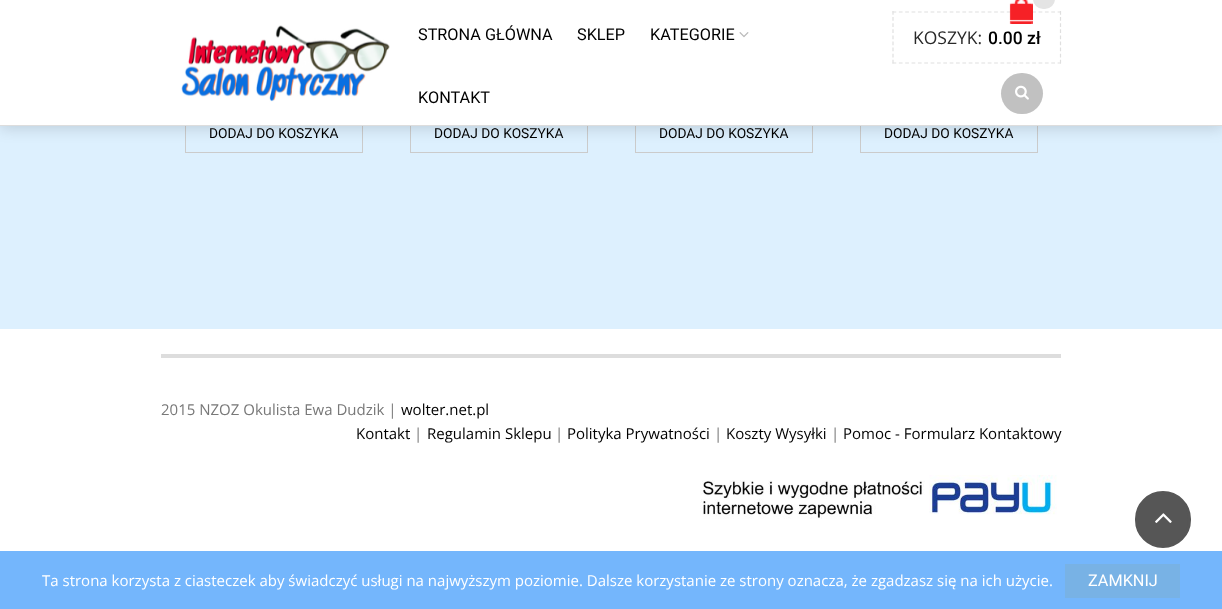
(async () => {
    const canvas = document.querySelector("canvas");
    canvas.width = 1222;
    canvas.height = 609;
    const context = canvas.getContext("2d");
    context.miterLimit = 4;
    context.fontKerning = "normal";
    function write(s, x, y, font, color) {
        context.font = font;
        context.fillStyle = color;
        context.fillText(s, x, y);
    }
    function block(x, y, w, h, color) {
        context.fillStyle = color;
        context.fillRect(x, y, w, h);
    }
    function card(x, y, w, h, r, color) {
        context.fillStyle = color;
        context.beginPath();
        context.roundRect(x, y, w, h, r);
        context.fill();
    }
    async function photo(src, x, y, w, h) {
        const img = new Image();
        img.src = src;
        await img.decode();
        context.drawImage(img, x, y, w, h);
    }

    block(0, 0, 1222, 609, "rgb(221, 240, 254)");
    context.strokeStyle = "rgb(203, 203, 203)";
    context.strokeRect(185.5, 116.5, 177, 36);
    context.strokeRect(410.5, 116.5, 177, 36);
    context.strokeRect(635.5, 116.5, 177, 36);
    context.strokeRect(860.5, 116.5, 177, 36);
    context.fillStyle = "rgba(0, 0, 0, 0.15)";
    context.filter = "blur(7.5px)";
    context.beginPath();
    context.rect(0, 1, 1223, 127);
    context.fill();
    context.filter = "none";
    block(0, 0, 1222, 125, "rgb(255, 255, 255)");
    block(0, 125, 1222, 1, "rgb(221, 221, 221)");
    await photo("media/1.png", 181, 25, 209, 77);
    write("STRONA GŁÓWNA", 418, 40, "16.25px Roboto", "rgb(0, 0, 0)");
    write("SKLEP", 577, 40, "16.25px Roboto", "rgb(0, 0, 0)");
    write("KATEGORIE", 650, 40, "16.25px Roboto", "rgb(0, 0, 0)");
    await photo("media/2.png", 739, 32, 10, 6);
    write("KONTAKT", 418, 103, "16.25px Roboto", "rgb(0, 0, 0)");
    context.beginPath();
    context.moveTo(892.5, 12);
    context.lineTo(1061, 12);
    context.strokeStyle = "rgb(223, 223, 223)";
    context.lineWidth = 1.2;
    context.setLineDash([3.75, 2.6]);
    context.stroke();
    context.beginPath();
    context.moveTo(1060.5, 11);
    context.lineTo(1060.5, 64);
    context.setLineDash([3.75, 2.35]);
    context.stroke();
    context.beginPath();
    context.moveTo(892.5, 63);
    context.lineTo(1061, 63);
    context.setLineDash([3.75, 2.6]);
    context.stroke();
    context.beginPath();
    context.moveTo(893, 11);
    context.lineTo(893, 64);
    context.setLineDash([3.75, 2.35]);
    context.stroke();
    await photo("media/3.png", 1009, 0, 24, 24);
    card(1033, -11, 22, 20, 11, "rgb(228, 228, 228)");
    write("KOSZYK:", 913, 44, "17.5px Open Sans", "rgb(41, 41, 41)");
    write("0.00 zł", 988, 44, "500 17.5px Roboto", "rgb(0, 0, 0)");
    card(1001, 73, 42, 41, 20.5, "rgb(193, 193, 193)");
    await photo("media/4.png", 1015, 85, 14, 15);
    write("DODAJ DO KOSZYKA", 209, 138, "13.75px Roboto", "rgb(0, 0, 0)");
    write("DODAJ DO KOSZYKA", 434, 138, "13.75px Roboto", "rgb(0, 0, 0)");
    write("DODAJ DO KOSZYKA", 659, 138, "13.75px Roboto", "rgb(0, 0, 0)");
    write("DODAJ DO KOSZYKA", 884, 138, "13.75px Roboto", "rgb(0, 0, 0)");
    block(0, 329, 1222, 222, "rgb(255, 255, 255)");
    block(161, 354, 900, 4, "rgb(221, 221, 221)");
    write("2015 NZOZ Okulista Ewa Dudzik |", 161, 415, "15px Open Sans", "rgb(120, 120, 120)");
    write("wolter.net.pl", 401, 415, "15px Open Sans", "rgb(0, 0, 0)");
    write("Kontakt", 356, 439, "15px Open Sans", "rgb(0, 0, 0)");
    write("|", 414, 439, "15px Open Sans", "rgb(120, 120, 120)");
    write("Regulamin Sklepu", 427, 439, "15px Open Sans", "rgb(0, 0, 0)");
    write("|", 555, 439, "15px Open Sans", "rgb(120, 120, 120)");
    write("Polityka Prywatności", 567, 439, "15px Open Sans", "rgb(0, 0, 0)");
    write("|", 714, 439, "15px Open Sans", "rgb(120, 120, 120)");
    write("Koszty Wysyłki", 726, 439, "15px Open Sans", "rgb(0, 0, 0)");
    write("|", 831, 439, "15px Open Sans", "rgb(120, 120, 120)");
    write("Pomoc - Formularz Kontaktowy", 843, 439, "15px Open Sans", "rgb(0, 0, 0)");
    await photo("media/5.png", 700, 475, 357, 44);
    context.fillStyle = "rgb(86, 86, 86)";
    context.beginPath();
    context.roundRect(1136.5, 492.5, 53, 54, 26.5);
    context.fill();
    context.strokeStyle = "rgb(86, 86, 86)";
    context.lineWidth = 3;
    context.setLineDash([]);
    context.stroke();
    await photo("media/6.png", 1155, 513, 17, 10);
    block(0, 551, 1222, 58, "rgb(116, 182, 252)");
    write("Ta strona korzysta z ciasteczek aby świadczyć usługi na najwyższym poziomie. Dalsze korzystanie ze strony oznacza, że zgadzasz się na ich użycie.", 42, 586, "15px Open Sans", "rgb(255, 255, 255)");
    block(1065, 564, 115, 34, "rgb(120, 178, 229)");
    write("ZAMKNIJ", 1088, 586, "16.25px Roboto", "rgb(255, 255, 255)");
})();
